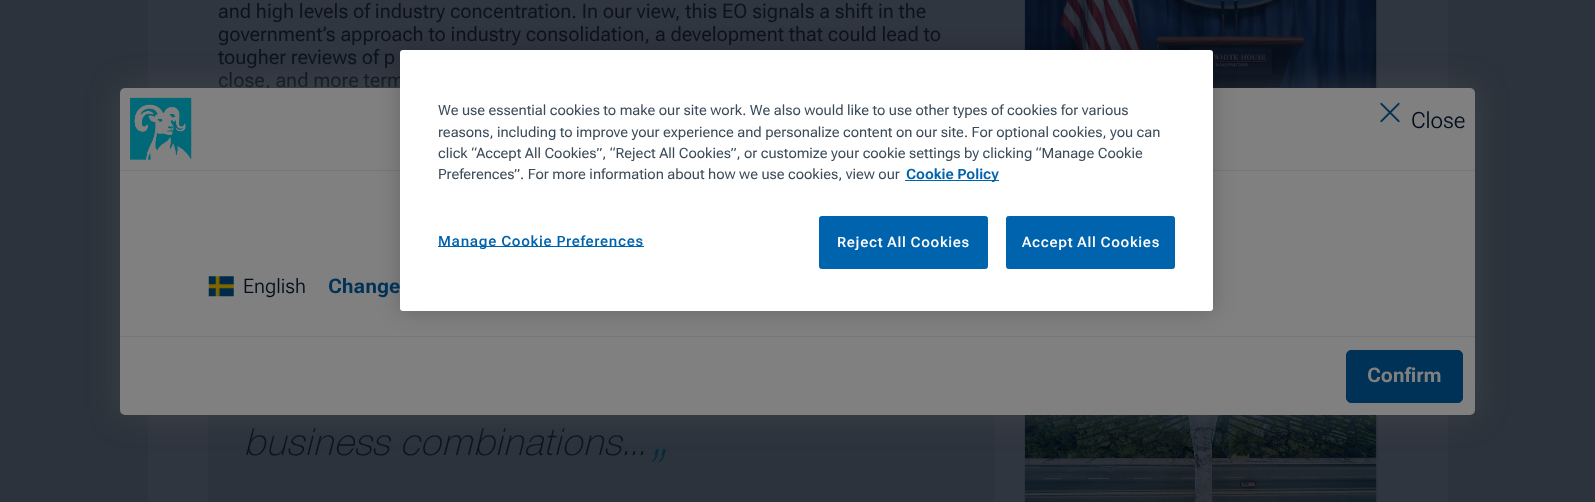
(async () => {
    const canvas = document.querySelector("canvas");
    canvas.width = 1595;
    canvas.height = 502;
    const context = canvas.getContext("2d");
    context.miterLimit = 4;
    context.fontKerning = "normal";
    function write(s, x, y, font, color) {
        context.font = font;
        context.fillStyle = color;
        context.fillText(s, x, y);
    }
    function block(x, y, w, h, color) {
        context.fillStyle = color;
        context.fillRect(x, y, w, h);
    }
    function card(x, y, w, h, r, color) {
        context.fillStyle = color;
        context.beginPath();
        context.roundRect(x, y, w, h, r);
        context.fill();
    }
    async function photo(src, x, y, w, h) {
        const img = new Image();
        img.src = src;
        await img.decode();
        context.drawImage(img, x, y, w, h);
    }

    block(0, 0, 1595, 502, "rgb(44, 51, 60)");
    block(148, 0, 1300, 502, "rgb(48, 54, 64)");
    write("and high levels of industry concentration. In our view, this EO signals a shift in the", 218, 18, "20px Roboto Flex", "rgb(13, 19, 28)");
    write("government’s approach to industry consolidation, a development that could lead to", 218, 41, "20px Roboto Flex", "rgb(13, 19, 28)");
    write("tougher reviews of p", 218, 64, "20px Roboto Flex", "rgb(13, 19, 28)");
    write("close, and more term", 218, 87, "20px Roboto Flex", "rgb(13, 19, 28)");
    block(208, 415, 786, 87, "rgb(44, 51, 60)");
    write("business combinations...", 243, 455, "italic 300 40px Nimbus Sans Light", "rgb(13, 19, 28)");
    write("„", 650, 455, "italic 300 60px Nimbus Sans Light", "rgb(3, 43, 58)");
    context.strokeStyle = "rgb(44, 51, 60)";
    context.strokeRect(1024.5, -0.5, 353, 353);
    await photo("media/1.png", 1025, 0, 352, 88);
    context.strokeRect(1024.5, 384.5, 353, 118);
    await photo("media/2.png", 1025, 415, 352, 87);
    context.fillStyle = "rgba(73, 78, 82, 0.56)";
    context.filter = "blur(15px)";
    context.beginPath();
    context.roundRect(120, 88, 1355, 327, 5);
    context.fill();
    context.filter = "none";
    card(120, 88, 1355, 327, 5, "rgb(128, 128, 128)");
    block(120, 170, 1355, 1, "rgb(117, 118, 119)");
    block(120, 336, 1355, 1, "rgb(117, 118, 119)");
    context.fillStyle = "rgba(0, 0, 0, 0.2)";
    context.filter = "blur(11px)";
    context.beginPath();
    context.roundRect(400, 50, 813, 261, 3);
    context.fill();
    context.filter = "none";
    card(400, 50, 813, 261, 3, "rgb(255, 255, 255)");
    write("We use essential cookies to make our site work. We also would like to use other types of cookies for various", 438, 115, "14.23px 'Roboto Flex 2'", "rgb(59, 75, 89)");
    write("reasons, including to improve your experience and personalize content on our site. For optional cookies, you can", 438, 137, "14.23px 'Roboto Flex 2'", "rgb(59, 75, 89)");
    write("click “Accept All Cookies”, “Reject All Cookies”, or customize your cookie settings by clicking “Manage Cookie", 438, 158, "14.23px 'Roboto Flex 2'", "rgb(59, 75, 89)");
    write("Preferences”. For more information about how we use cookies, view our", 438, 179, "14.23px 'Roboto Flex 2'", "rgb(59, 75, 89)");
    block(905, 180, 94, 1, "rgb(0, 99, 173)");
    write("Cookie Policy", 906, 179, "bold 14.23px 'Roboto Flex 2'", "rgb(0, 99, 173)");
    block(438, 246, 206, 1, "rgb(0, 99, 173)");
    context.letterSpacing = "0.7px";
    write("Manage Cookie Preferences", 438, 246, "600 14.23px Roboto Flex", "rgb(0, 99, 173)");
    context.beginPath();
    context.roundRect(819.5, 216.5, 168, 52, 2);
    context.fill();
    context.strokeStyle = "rgb(0, 99, 173)";
    context.stroke();
    write("Reject All Cookies", 837, 247, "600 14.23px Roboto Flex", "rgb(255, 255, 255)");
    context.fillStyle = "rgb(0, 99, 173)";
    context.beginPath();
    context.roundRect(1006.5, 216.5, 168, 52, 2);
    context.fill();
    context.stroke();
    write("Accept All Cookies", 1022, 247, "600 14.23px Roboto Flex", "rgb(255, 255, 255)");
    await photo("media/3.png", 130, 97, 62, 63);
    await photo("media/4.png", 1380, 102, 20, 21);
    context.letterSpacing = "0px";
    write("Close", 1411, 128, "300 22.5px Roboto Flex", "rgb(3, 13, 28)");
    await photo("media/5.png", 208, 276, 26, 21);
    write("English", 243, 293, "300 20px 'Roboto Flex 2'", "rgb(3, 13, 28)");
    write("Change", 328, 293, "bold 20px Roboto Flex", "rgb(0, 50, 87)");
    context.beginPath();
    context.roundRect(1346.5, 350.5, 116, 52, 4.5);
    context.fill();
    context.strokeStyle = "rgb(0, 50, 87)";
    context.stroke();
    write("Confirm", 1367, 382, "bold 20px Roboto Flex", "rgb(128, 128, 128)");
})();
